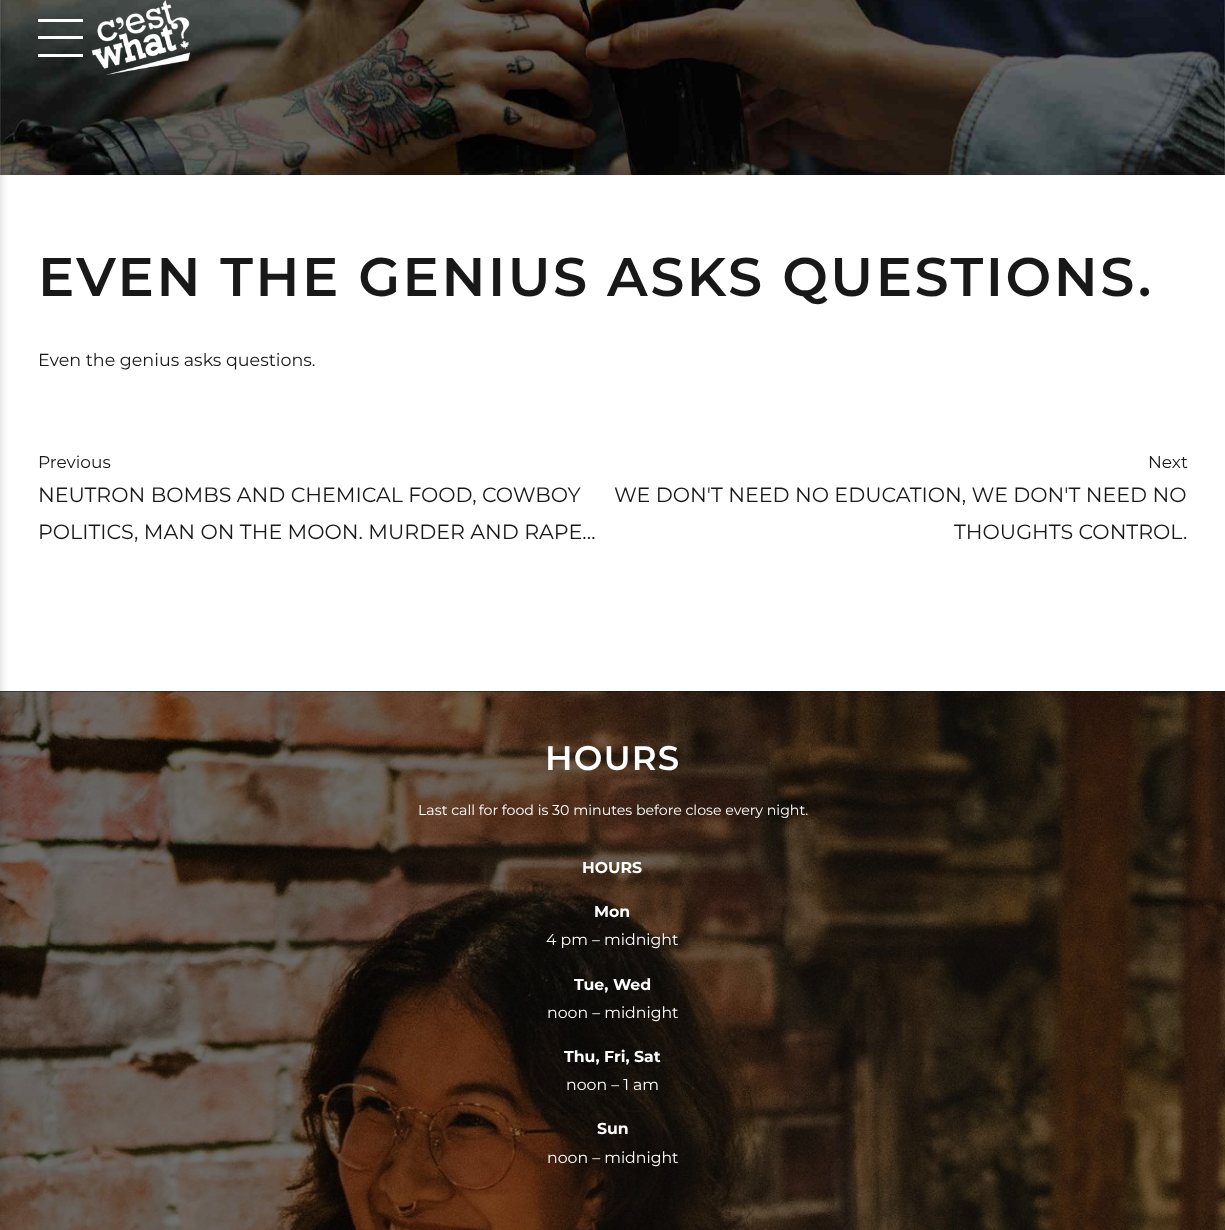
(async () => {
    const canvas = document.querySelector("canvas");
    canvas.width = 1225;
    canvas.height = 1230;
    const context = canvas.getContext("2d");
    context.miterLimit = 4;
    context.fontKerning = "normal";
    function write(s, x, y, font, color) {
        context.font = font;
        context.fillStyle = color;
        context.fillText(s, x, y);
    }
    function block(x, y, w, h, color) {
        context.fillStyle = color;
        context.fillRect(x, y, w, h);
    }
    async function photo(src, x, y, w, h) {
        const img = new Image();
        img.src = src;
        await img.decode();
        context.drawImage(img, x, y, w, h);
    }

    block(0, 0, 1225, 1230, "rgb(255, 255, 255)");
    await photo("media/2.png", 0, 0, 1225, 175);
    block(0, 691, 1225, 1, "rgb(13, 13, 13)");
    await photo("media/3.png", 0, 691, 1225, 539);
    context.fillStyle = "rgba(0, 0, 0, 0.1)";
    context.filter = "blur(3px)";
    context.beginPath();
    context.rect(-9, 0, 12, 1230);
    context.fill();
    context.filter = "none";
    block(38, 19, 45, 3, "rgb(255, 255, 255)");
    block(38, 36, 45, 3, "rgb(255, 255, 255)");
    block(38, 54, 45, 3, "rgb(255, 255, 255)");
    await photo("media/1.png", 91, 0, 99, 75);
    context.letterSpacing = "2.5px";
    write("EVEN THE GENIUS ASKS QUESTIONS.", 38, 296, "600 54.25px Montserrat", "rgb(24, 24, 24)");
    context.letterSpacing = "0px";
    write("Even the genius asks questions.", 38, 366, "17.5px Montserrat", "rgb(24, 24, 24)");
    write("Previous", 38, 468, "17px Montserrat", "rgb(24, 24, 24)");
    write("NEUTRON BOMBS AND CHEMICAL FOOD, COWBOY", 38, 502, "20.6px Montserrat", "rgb(24, 24, 24)");
    write("POLITICS, MAN ON THE MOON. MURDER AND RAPE…", 38, 539, "20.6px Montserrat", "rgb(24, 24, 24)");
    write("Next", 1148, 468, "17px Montserrat", "rgb(24, 24, 24)");
    write("WE DON'T NEED NO EDUCATION, WE DON'T NEED NO", 614, 502, "20.6px Montserrat", "rgb(24, 24, 24)");
    write("THOUGHTS CONTROL.", 954, 539, "20.6px Montserrat", "rgb(24, 24, 24)");
    context.letterSpacing = "1.25px";
    write("HOURS", 545, 770, "600 34px Montserrat", "rgb(255, 255, 255)");
    context.letterSpacing = "0px";
    write("Last call for food is 30 minutes before close every night.", 418, 815, "14.2px Montserrat", "rgb(255, 255, 255)");
    write("HOURS", 582, 873, "bold 15.75px Montserrat", "rgb(255, 255, 255)");
    write("Mon", 594, 917, "bold 15.75px Montserrat", "rgb(255, 255, 255)");
    write("4 pm – midnight", 546, 945, "15.75px Montserrat", "rgb(255, 255, 255)");
    write("Tue, Wed", 574, 990, "bold 15.75px Montserrat", "rgb(255, 255, 255)");
    write("noon – midnight", 547, 1018, "15.75px Montserrat", "rgb(255, 255, 255)");
    write("Thu, Fri, Sat", 564, 1062, "bold 15.75px Montserrat", "rgb(255, 255, 255)");
    write("noon – 1 am", 566, 1090, "15.75px Montserrat", "rgb(255, 255, 255)");
    write("Sun", 597, 1134, "bold 15.75px Montserrat", "rgb(255, 255, 255)");
    write("noon – midnight", 547, 1163, "15.75px Montserrat", "rgb(255, 255, 255)");
})();
